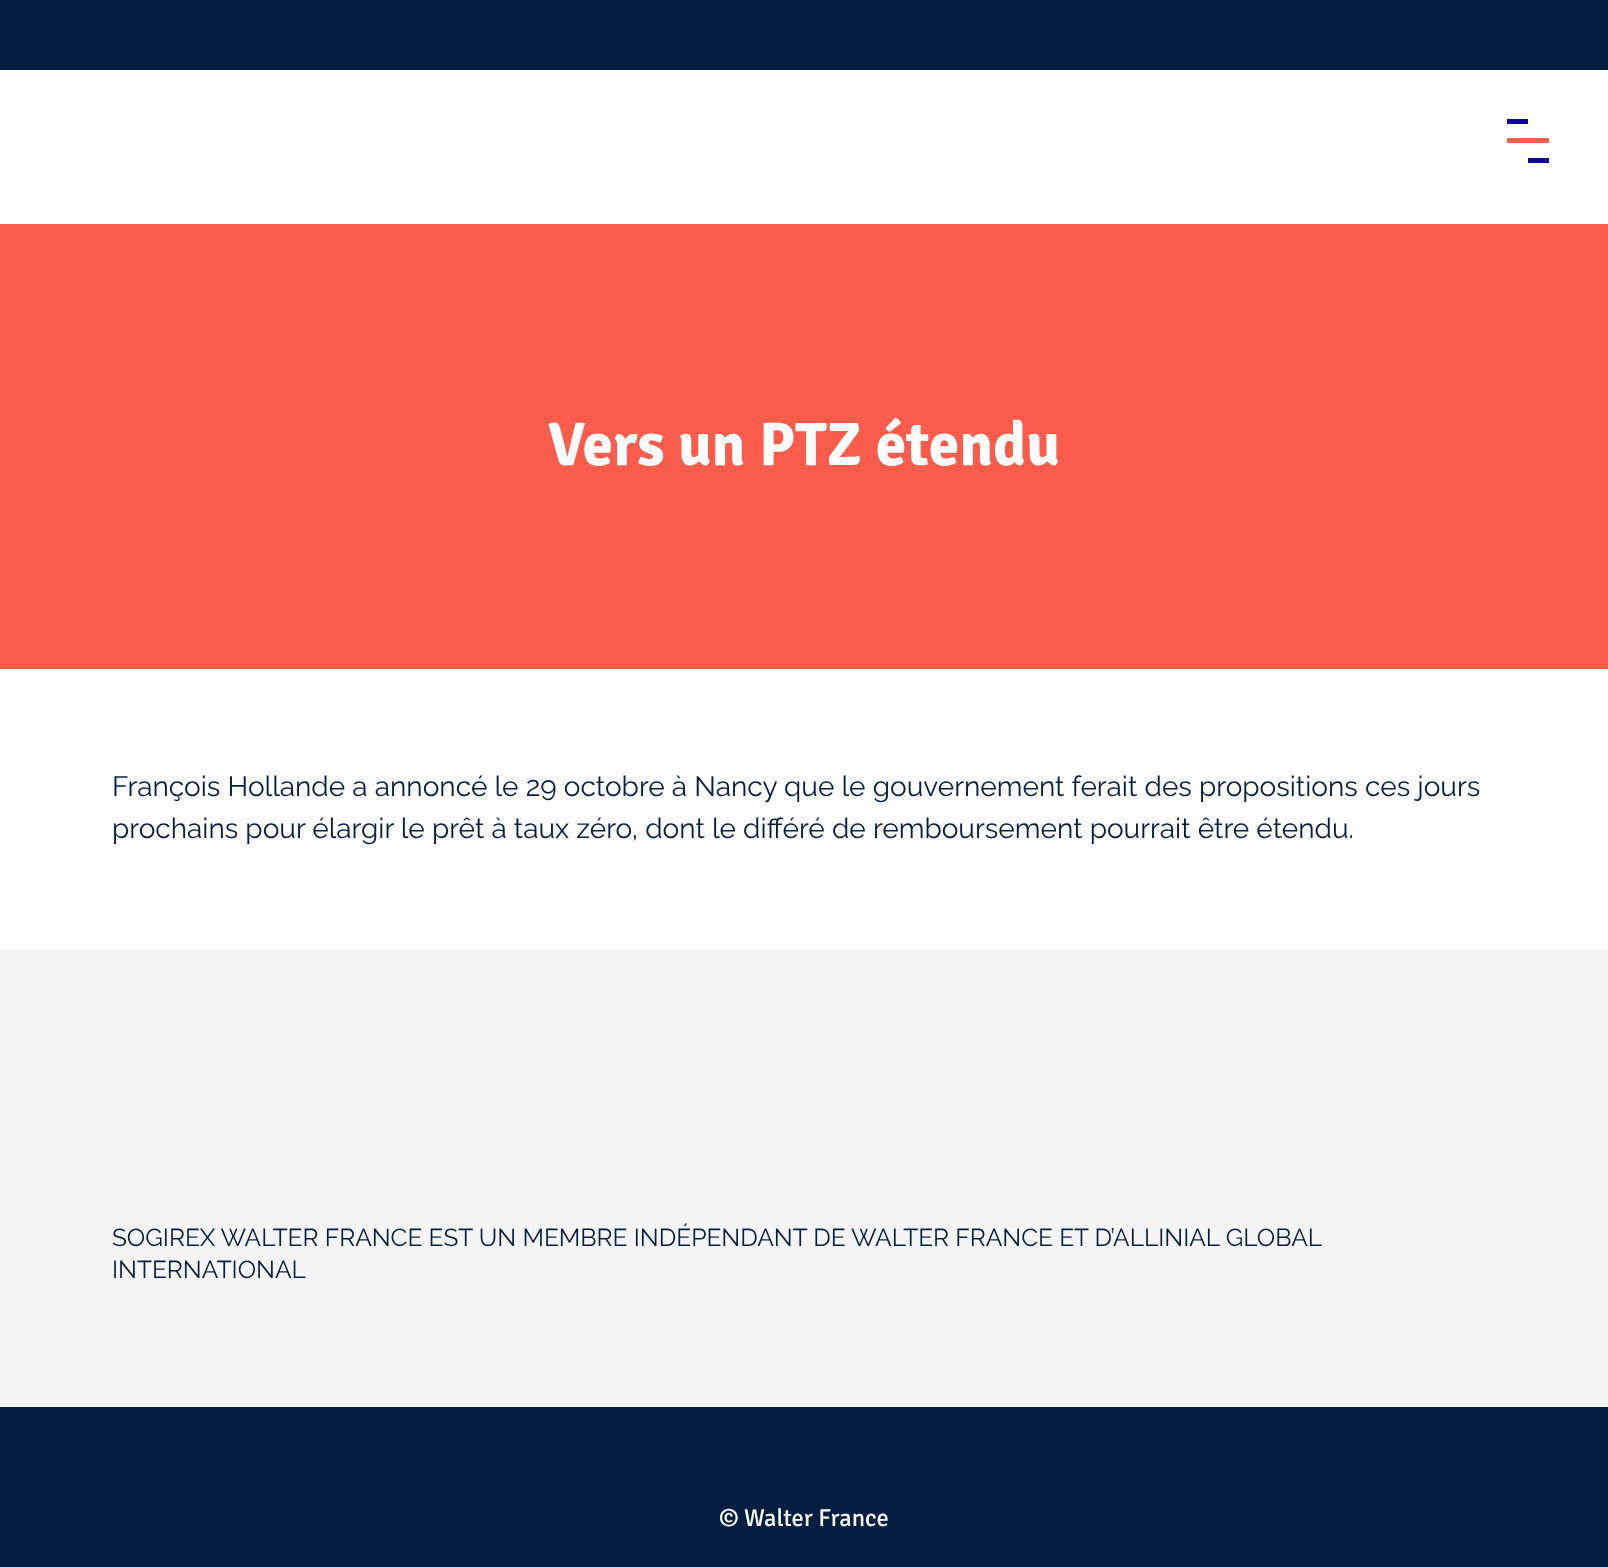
(async () => {
    const canvas = document.querySelector("canvas");
    canvas.width = 1608;
    canvas.height = 1567;
    const context = canvas.getContext("2d");
    context.miterLimit = 4;
    context.fontKerning = "normal";
    function write(s, x, y, font, color) {
        context.font = font;
        context.fillStyle = color;
        context.fillText(s, x, y);
    }
    function block(x, y, w, h, color) {
        context.fillStyle = color;
        context.fillRect(x, y, w, h);
    }

    block(0, 0, 1608, 1567, "rgb(255, 255, 255)");
    block(0, 0, 1608, 70, "rgb(4, 30, 66)");
    block(1507, 119, 21, 5, "rgb(16, 6, 159)");
    block(1507, 138, 42, 5, "rgb(251, 92, 75)");
    block(1528, 158, 21, 5, "rgb(16, 6, 159)");
    block(0, 224, 1608, 445, "rgb(251, 92, 75)");
    write("Vers un PTZ étendu", 548, 465, "bold 61.5px Signika", "rgb(255, 255, 255)");
    write("François Hollande a annoncé le 29 octobre à Nancy que le gouvernement ferait des propositions ces jours", 112, 796, "28px Raleway", "rgb(4, 30, 66)");
    write("prochains pour élargir le prêt à taux zéro, dont le différé de remboursement pourrait être étendu.", 112, 838, "28px Raleway", "rgb(4, 30, 66)");
    block(0, 949, 1608, 458, "rgb(245, 245, 245)");
    write("SOGIREX WALTER FRANCE EST UN MEMBRE INDÉPENDANT DE WALTER FRANCE ET D’ALLINIAL GLOBAL", 112, 1246, "24.5px Raleway", "rgb(4, 30, 66)");
    write("INTERNATIONAL", 112, 1278, "24.5px Raleway", "rgb(4, 30, 66)");
    block(0, 1407, 1608, 160, "rgb(4, 30, 66)");
    write("© Walter France", 719, 1526, "24.5px Signika", "rgb(255, 255, 255)");
})();
